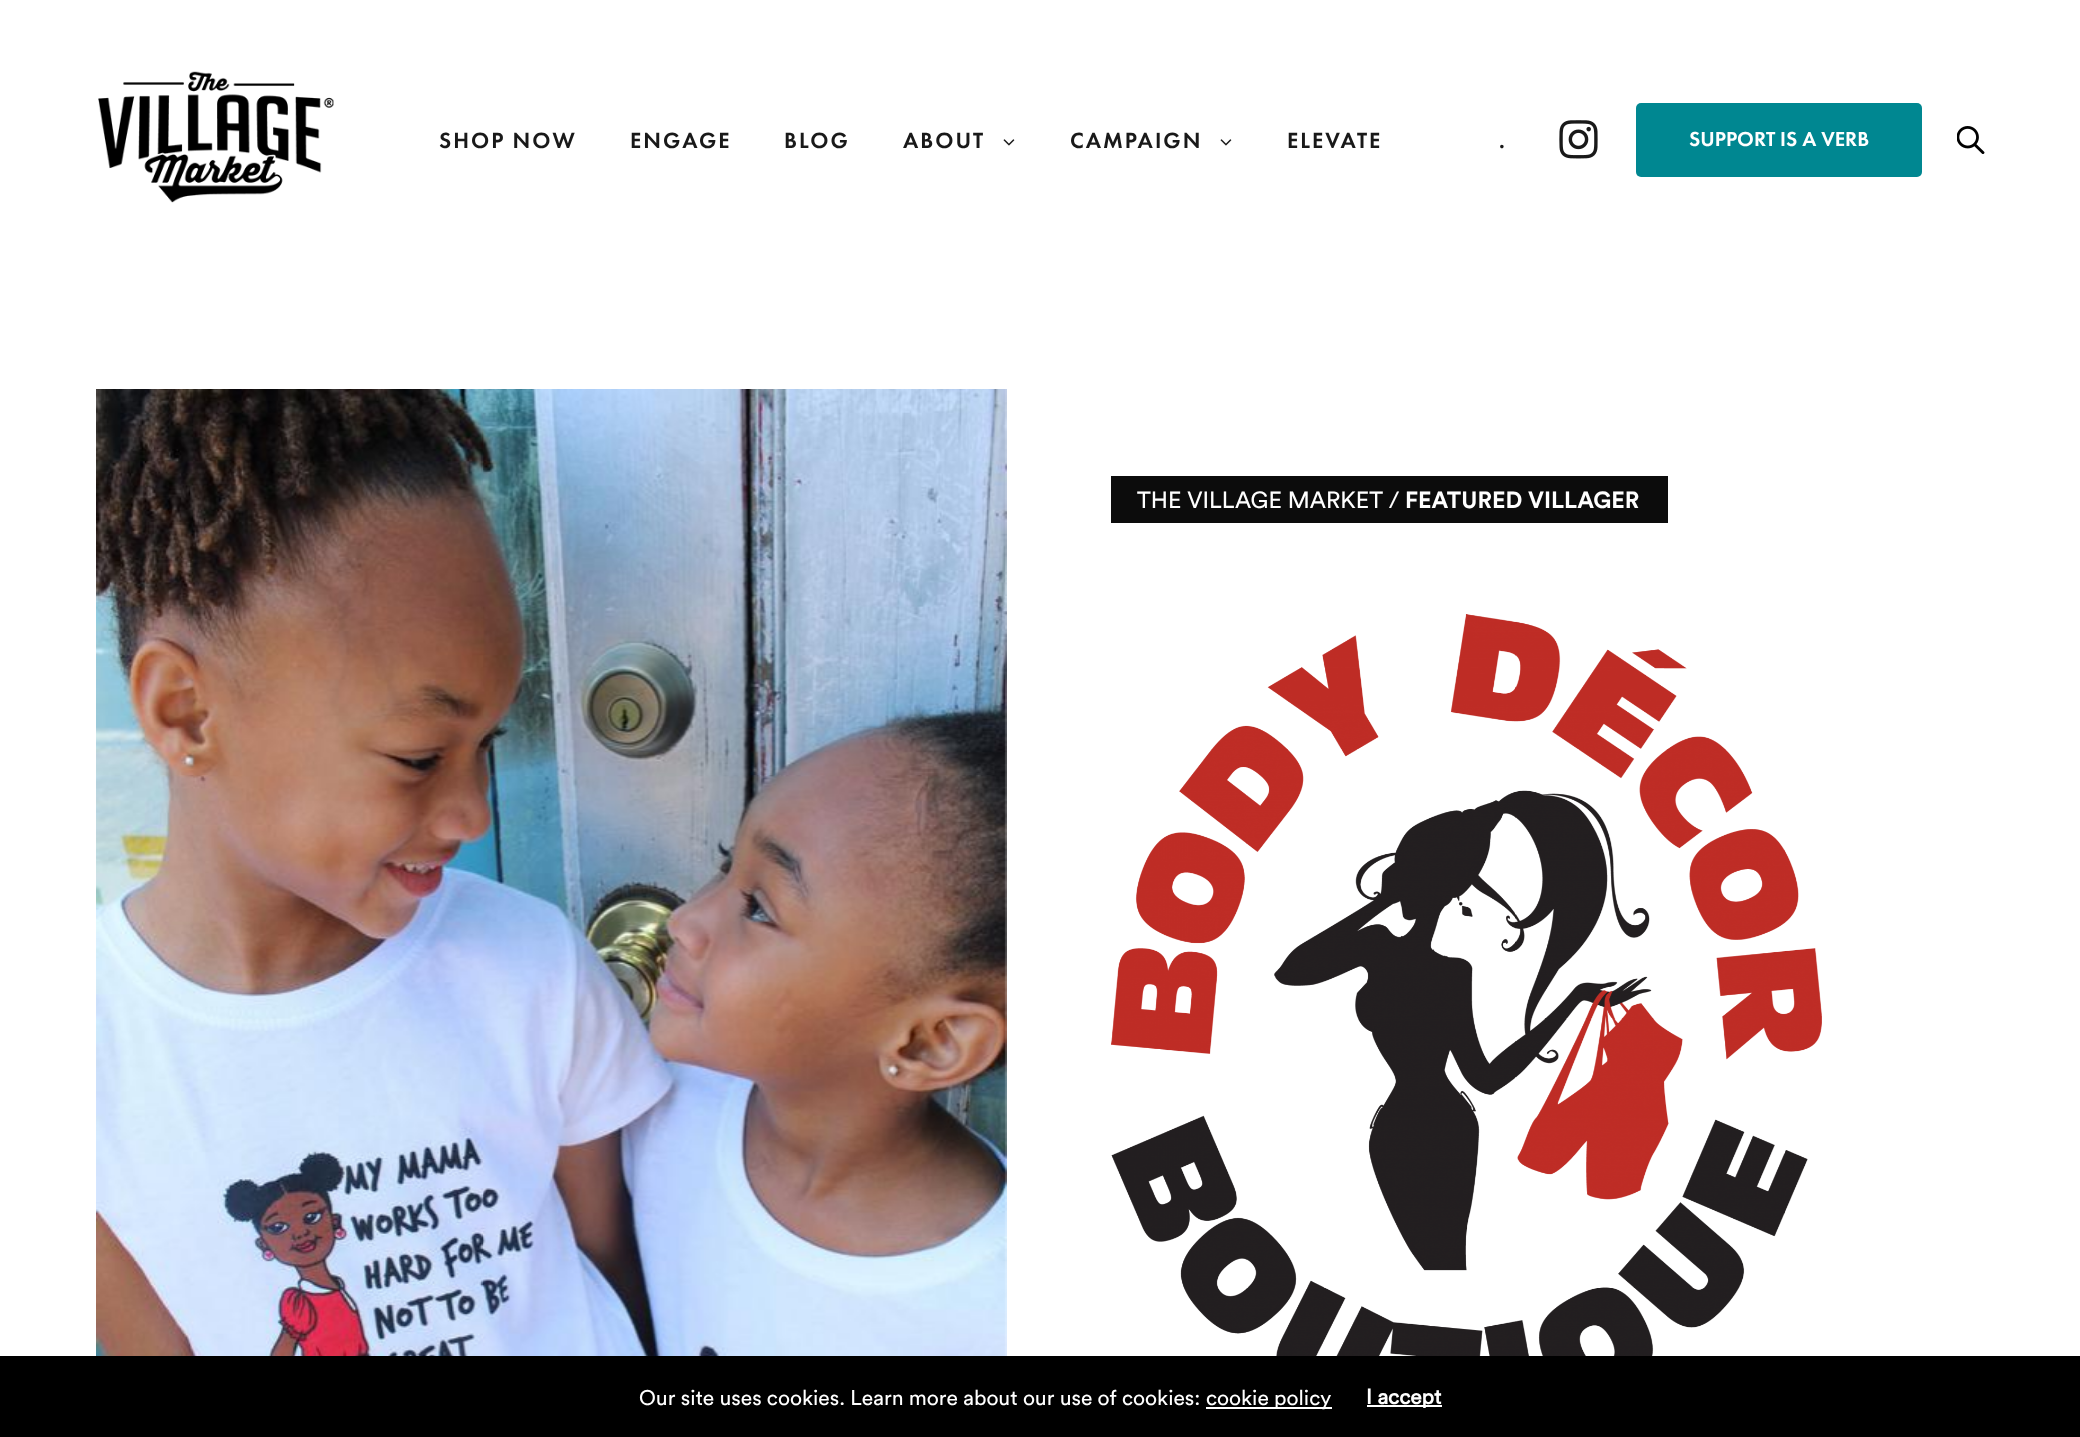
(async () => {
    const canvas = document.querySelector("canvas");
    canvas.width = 2080;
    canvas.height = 1437;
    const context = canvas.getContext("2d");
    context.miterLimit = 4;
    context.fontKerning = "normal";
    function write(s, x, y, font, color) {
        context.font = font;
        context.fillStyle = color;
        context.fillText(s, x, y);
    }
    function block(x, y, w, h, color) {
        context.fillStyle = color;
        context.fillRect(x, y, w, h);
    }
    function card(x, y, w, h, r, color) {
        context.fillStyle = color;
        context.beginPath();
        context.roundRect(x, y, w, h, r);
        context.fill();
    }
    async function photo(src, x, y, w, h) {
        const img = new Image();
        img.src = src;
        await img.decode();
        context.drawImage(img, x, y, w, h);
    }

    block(0, 0, 2080, 1437, "rgb(255, 255, 255)");
    await photo("media/1.png", 98, 71, 236, 132);
    context.letterSpacing = "2px";
    write("SHOP NOW", 439, 148, "500 22.75px Futura PT", "rgb(25, 25, 25)");
    write("ENGAGE", 630, 148, "500 22.75px Futura PT", "rgb(25, 25, 25)");
    write("BLOG", 784, 148, "500 22.75px Futura PT", "rgb(25, 25, 25)");
    write("ABOUT", 903, 148, "500 22.75px Futura PT", "rgb(25, 25, 25)");
    await photo("media/2.png", 1003, 139, 12, 7);
    write("CAMPAIGN", 1070, 148, "500 22.75px Futura PT", "rgb(25, 25, 25)");
    await photo("media/2.png", 1220, 139, 12, 7);
    write("ELEVATE", 1287, 148, "500 22.75px Futura PT", "rgb(25, 25, 25)");
    write(".", 1499, 148, "500 22.75px Futura PT", "rgb(25, 25, 25)");
    await photo("media/3.png", 1559, 120, 39, 39);
    card(1636, 103, 286, 74, 5, "rgb(0, 135, 145)");
    context.letterSpacing = "0px";
    write("SUPPORT IS A VERB", 1689, 146, "500 21px Futura PT", "rgb(255, 255, 255)");
    await photo("media/4.png", 1957, 126, 28, 28);
    await photo("media/5.png", 96, 389, 911, 967);
    block(1111, 476, 557, 47, "rgb(12, 12, 12)");
    write("THE VILLAGE MARKET /", 1137, 508, "23.25px Circular", "rgb(255, 255, 255)");
    write("FEATURED VILLAGER", 1405, 508, "bold 23.25px Circular", "rgb(255, 255, 255)");
    await photo("media/6.png", 1111, 614, 711, 742);
    block(0, 1356, 2080, 81, "rgb(0, 0, 0)");
    write("Our site uses cookies. Learn more about our use of cookies:", 639, 1405, "21px Circular", "rgb(255, 255, 255)");
    block(1206, 1407, 126, 2, "rgb(255, 255, 255)");
    write("cookie policy", 1206, 1405, "21px Circular", "rgb(255, 255, 255)");
    block(1367, 1405, 75, 2, "rgb(255, 255, 255)");
    write("I accept", 1366, 1404, "bold 21px 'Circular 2'", "rgb(255, 255, 255)");
})();
